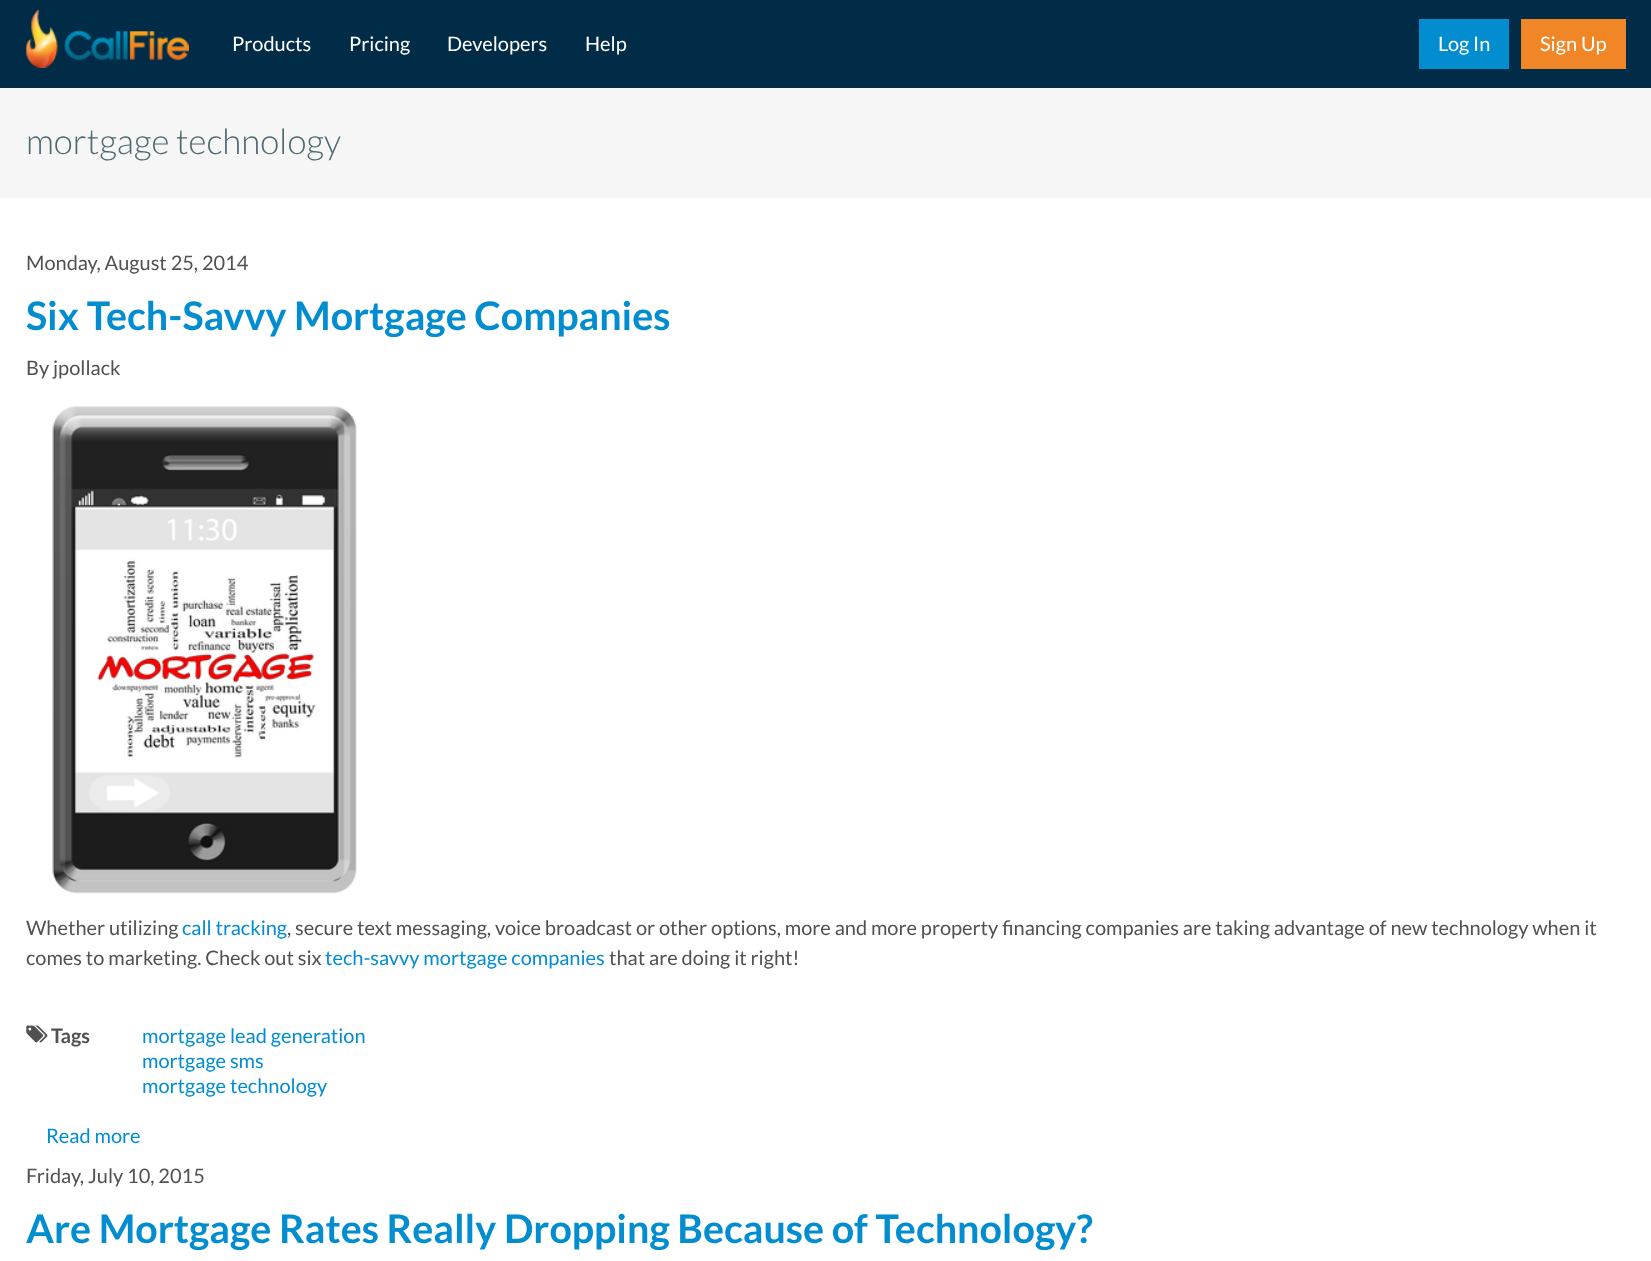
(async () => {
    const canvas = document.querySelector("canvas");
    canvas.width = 1651;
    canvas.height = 1261;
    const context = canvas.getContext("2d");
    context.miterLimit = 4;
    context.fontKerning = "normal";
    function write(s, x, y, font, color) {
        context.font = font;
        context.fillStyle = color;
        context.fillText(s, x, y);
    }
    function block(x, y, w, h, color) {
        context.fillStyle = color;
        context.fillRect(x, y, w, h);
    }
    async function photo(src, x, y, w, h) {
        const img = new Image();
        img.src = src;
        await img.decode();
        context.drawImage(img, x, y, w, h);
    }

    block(0, 0, 1651, 1261, "rgb(255, 255, 255)");
    block(0, 0, 1651, 88, "rgb(0, 44, 71)");
    await photo("media/1.png", 26, 10, 163, 58);
    write("Products", 232, 51, "20px Lato", "rgb(255, 255, 255)");
    write("Pricing", 349, 51, "20px Lato", "rgb(255, 255, 255)");
    write("Developers", 447, 51, "20px Lato", "rgb(255, 255, 255)");
    write("Help", 585, 51, "20px Lato", "rgb(255, 255, 255)");
    block(1419, 19, 90, 50, "rgb(2, 141, 208)");
    write("Log In", 1438, 51, "20px Lato", "rgb(255, 255, 255)");
    block(1521, 19, 105, 50, "rgb(241, 134, 39)");
    write("Sign Up", 1540, 51, "20px Lato", "rgb(255, 255, 255)");
    block(0, 88, 1651, 110, "rgb(246, 246, 246)");
    write("mortgage technology", 26, 154, "300 35px Lato", "rgb(77, 104, 113)");
    write("Monday, August 25, 2014", 26, 270, "20px Lato", "rgb(81, 81, 81)");
    write("Six Tech-Savvy Mortgage Companies", 26, 330, "bold 39.4px Lato", "rgb(2, 141, 208)");
    write("By jpollack", 26, 375, "20px Lato", "rgb(81, 81, 81)");
    await photo("media/2.png", 52, 406, 305, 488);
    write("Whether utilizing", 26, 935, "20px Lato", "rgb(81, 81, 81)");
    write("call tracking", 182, 935, "20px Lato", "rgb(2, 141, 208)");
    write(", secure text messaging, voice broadcast or other options, more and more property financing companies are taking advantage of new technology when it", 287, 935, "20px Lato", "rgb(81, 81, 81)");
    write("comes to marketing. Check out six", 26, 965, "20px Lato", "rgb(81, 81, 81)");
    write("tech-savvy mortgage companies", 325, 965, "20px Lato", "rgb(2, 141, 208)");
    write("that are doing it right!", 609, 965, "20px Lato", "rgb(81, 81, 81)");
    await photo("media/3.png", 26, 1025, 22, 18);
    write("Tags", 51, 1043, "bold 20px Lato", "rgb(81, 81, 81)");
    write("mortgage lead generation", 142, 1043, "20px Lato", "rgb(2, 141, 208)");
    write("mortgage sms", 142, 1068, "20px Lato", "rgb(2, 141, 208)");
    write("mortgage technology", 142, 1093, "20px Lato", "rgb(2, 141, 208)");
    write("Read more", 46, 1143, "20px Lato", "rgb(2, 141, 208)");
    write("Friday, July 10, 2015", 26, 1183, "20px Lato", "rgb(81, 81, 81)");
    write("Are Mortgage Rates Really Dropping Because of Technology?", 26, 1243, "bold 39.4px Lato", "rgb(2, 141, 208)");
})();
